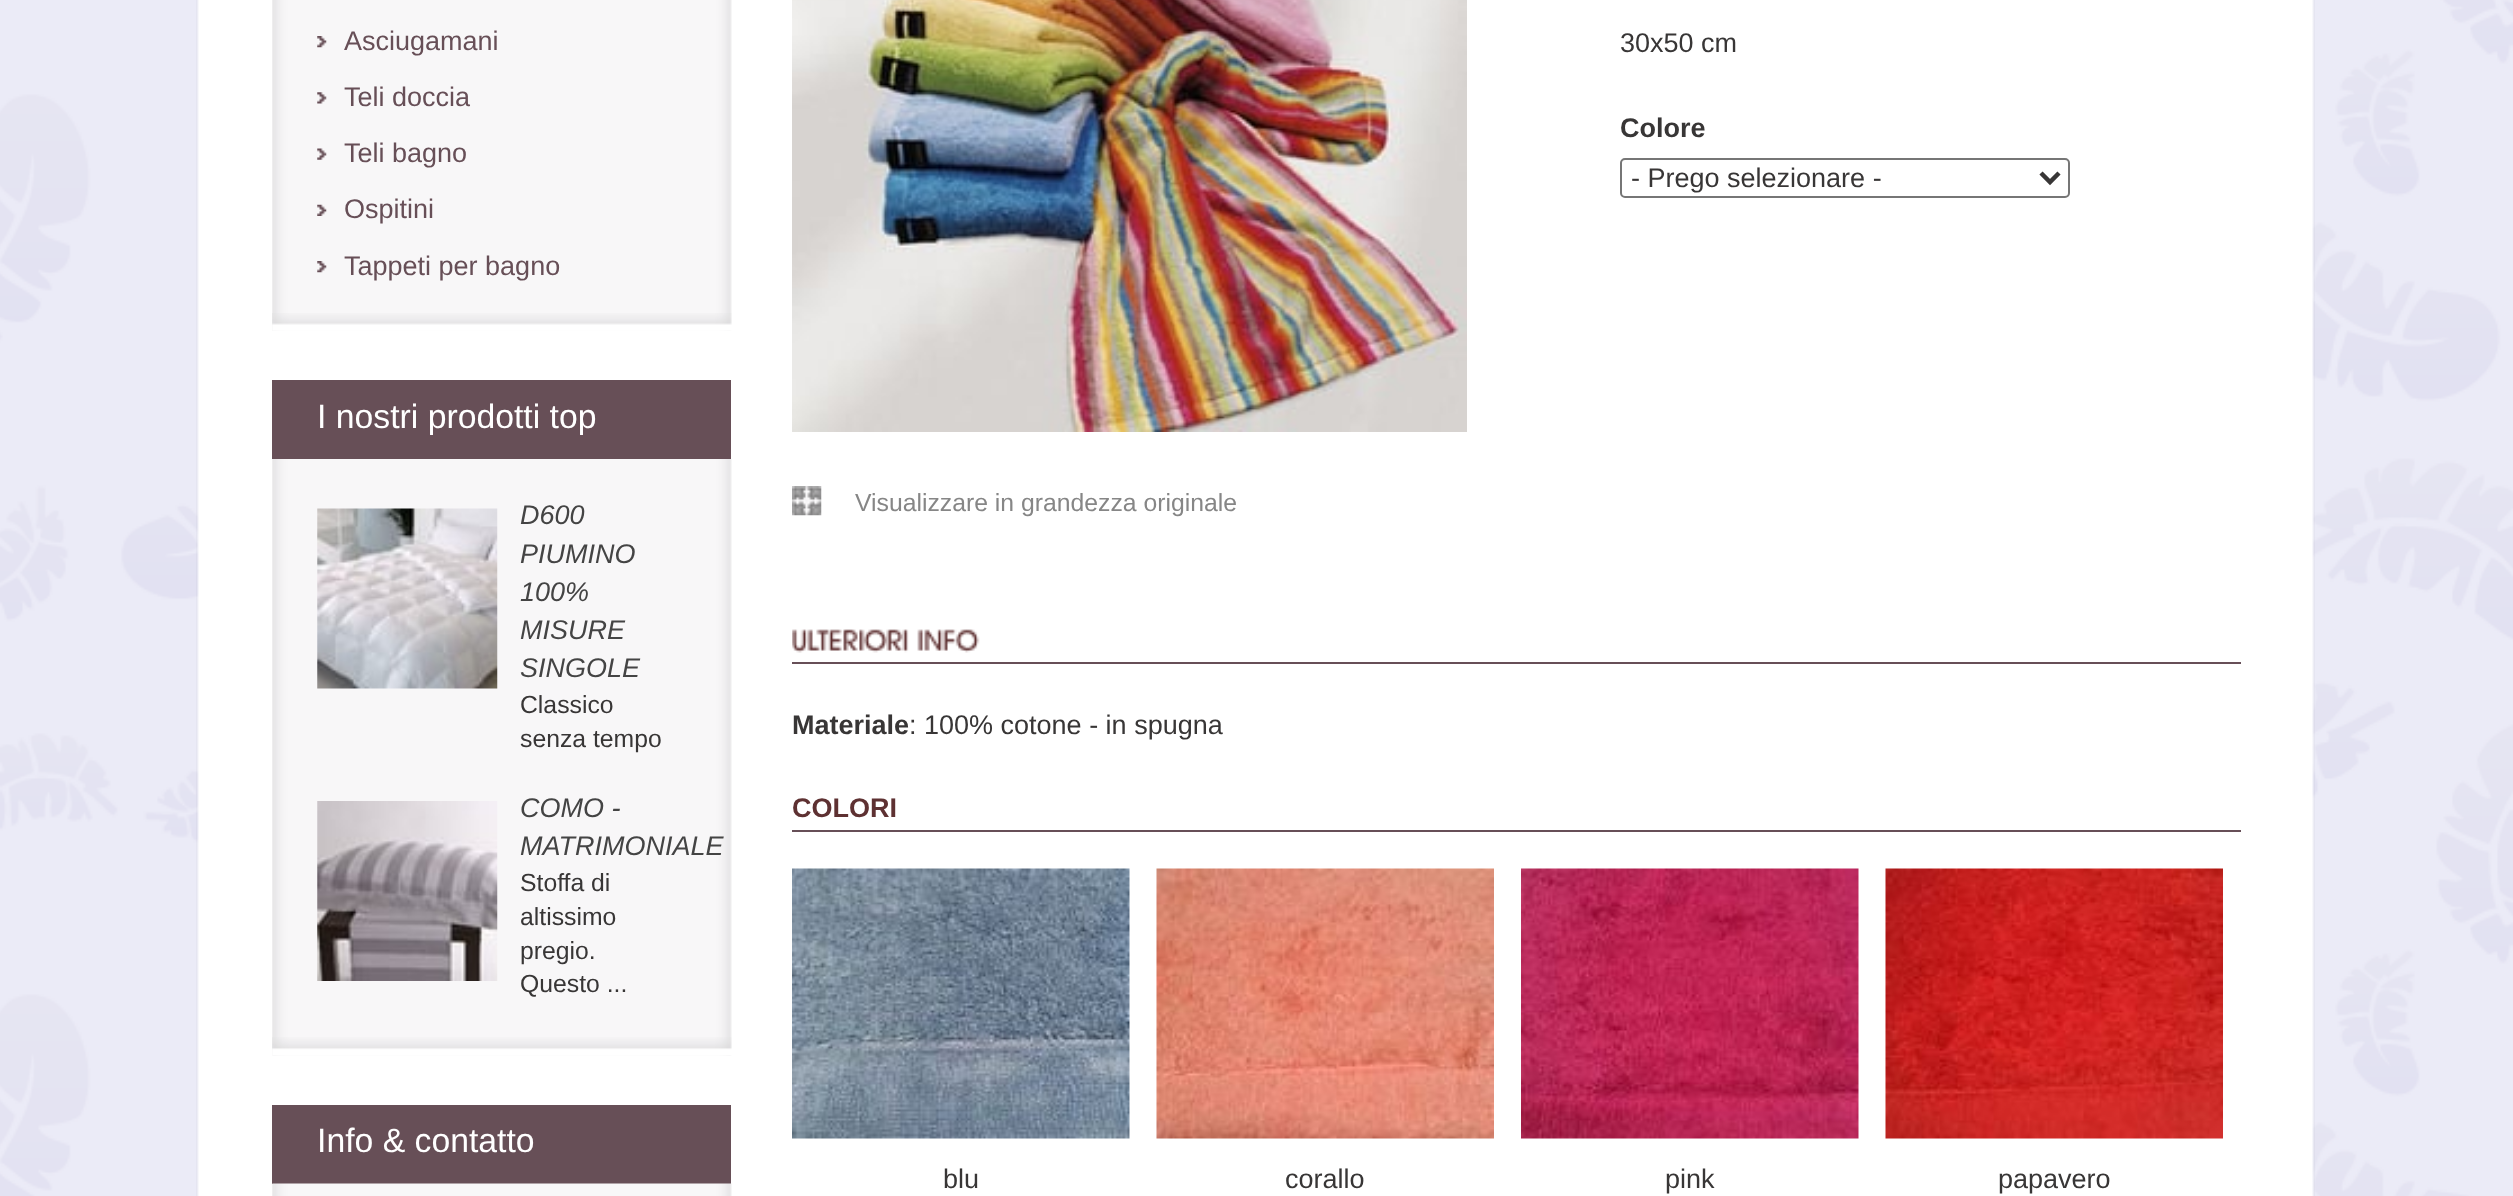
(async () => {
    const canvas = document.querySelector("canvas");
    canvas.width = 2513;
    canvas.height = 1196;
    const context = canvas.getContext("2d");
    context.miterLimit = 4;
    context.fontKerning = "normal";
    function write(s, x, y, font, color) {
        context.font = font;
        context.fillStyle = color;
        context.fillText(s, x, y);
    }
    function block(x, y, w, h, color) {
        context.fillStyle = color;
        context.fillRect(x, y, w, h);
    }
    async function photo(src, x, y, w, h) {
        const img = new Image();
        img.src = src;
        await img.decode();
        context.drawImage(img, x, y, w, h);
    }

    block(0, 0, 2513, 1196, "rgb(255, 255, 255)");
    await photo("media/1.png", 0, 0, 2513, 1196);
    await photo("media/2.png", 196, 0, 2119, 1196);
    await photo("media/3.png", 272, 0, 460, 331);
    await photo("media/4.png", 317, 36, 10, 12);
    write("Asciugamani", 344, 50, "27px Liberation Sans", "rgb(103, 79, 87)");
    await photo("media/5.png", 317, 92, 10, 12);
    write("Teli doccia", 344, 106, "27px Liberation Sans", "rgb(103, 79, 87)");
    await photo("media/6.png", 317, 148, 10, 12);
    write("Teli bagno", 344, 162, "27px Liberation Sans", "rgb(103, 79, 87)");
    await photo("media/7.png", 317, 204, 10, 12);
    write("Ospitini", 344, 218, "27px Liberation Sans", "rgb(103, 79, 87)");
    await photo("media/4.png", 317, 261, 10, 12);
    write("Tappeti per bagno", 344, 275, "27px Liberation Sans", "rgb(103, 79, 87)");
    await photo("media/8.png", 272, 313, 460, 18);
    block(272, 380, 459, 79, "rgb(103, 79, 87)");
    write("I nostri prodotti top", 317, 428, "33.75px Liberation Sans", "rgb(255, 255, 255)");
    await photo("media/9.png", 272, 459, 460, 597);
    await photo("media/10.png", 317, 508, 181, 181);
    write("D600", 520, 524, "italic 27px Liberation Sans", "rgb(68, 68, 68)");
    write("PIUMINO", 520, 563, "italic 27px Liberation Sans", "rgb(68, 68, 68)");
    write("100%", 520, 601, "italic 27px Liberation Sans", "rgb(68, 68, 68)");
    write("MISURE", 520, 639, "italic 27px Liberation Sans", "rgb(68, 68, 68)");
    write("SINGOLE", 520, 677, "italic 27px Liberation Sans", "rgb(68, 68, 68)");
    write("Classico", 520, 713, "24.75px Liberation Sans", "rgb(56, 54, 54)");
    write("senza tempo", 520, 747, "24.75px Liberation Sans", "rgb(56, 54, 54)");
    await photo("media/11.png", 317, 801, 181, 180);
    write("COMO -", 520, 817, "italic 27px Liberation Sans", "rgb(68, 68, 68)");
    write("MATRIMONIALE", 520, 855, "italic 27px Liberation Sans", "rgb(68, 68, 68)");
    write("Stoffa di", 520, 891, "24.75px Liberation Sans", "rgb(56, 54, 54)");
    write("altissimo", 520, 925, "24.75px Liberation Sans", "rgb(56, 54, 54)");
    write("pregio.", 520, 959, "24.75px Liberation Sans", "rgb(56, 54, 54)");
    write("Questo ...", 520, 992, "24.75px Liberation Sans", "rgb(56, 54, 54)");
    await photo("media/12.png", 272, 1037, 460, 18);
    block(272, 1105, 459, 79, "rgb(103, 79, 87)");
    write("Info & contatto", 317, 1152, "33.75px Liberation Sans", "rgb(255, 255, 255)");
    await photo("media/13.png", 272, 1183, 460, 13);
    write("30x50 cm", 1620, 52, "27px Liberation Sans", "rgb(56, 54, 54)");
    write("Colore", 1620, 137, "bold 27px Liberation Sans", "rgb(56, 54, 54)");
    context.beginPath();
    context.roundRect(1621, 159, 448, 38, 4);
    context.strokeStyle = "rgb(118, 118, 118)";
    context.lineWidth = 2;
    context.stroke();
    context.beginPath();
    context.moveTo(2041, 173);
    context.lineTo(2050, 182);
    context.lineTo(2059, 173);
    context.strokeStyle = "rgb(56, 54, 54)";
    context.lineWidth = 4.5;
    context.stroke();
    write("- Prego selezionare -", 1631, 187, "27px Liberation Sans", "rgb(56, 54, 54)");
    await photo("media/14.png", 792, 0, 675, 432);
    await photo("media/15.png", 792, 486, 30, 30);
    write("Visualizzare in grandezza originale", 855, 511, "24.75px Liberation Sans", "rgb(134, 134, 134)");
    block(792, 662, 1449, 2, "rgb(103, 79, 87)");
    await photo("media/16.png", 792, 629, 117, 24);
    await photo("media/17.png", 917, 629, 63, 24);
    write("Materiale", 792, 734, "bold 27px Liberation Sans", "rgb(56, 54, 54)");
    write(": 100% cotone - in spugna", 909, 734, "27px Liberation Sans", "rgb(56, 54, 54)");
    block(792, 830, 1449, 2, "rgb(103, 79, 87)");
    write("COLORI", 792, 817, "bold 27px Liberation Sans", "rgb(94, 49, 50)");
    await photo("media/18.png", 792, 868, 338, 271);
    write("blu", 943, 1188, "27px Liberation Sans", "rgb(56, 54, 54)");
    await photo("media/19.png", 1156, 868, 338, 271);
    write("corallo", 1285, 1188, "27px Liberation Sans", "rgb(56, 54, 54)");
    await photo("media/20.png", 1521, 868, 338, 271);
    write("pink", 1665, 1188, "27px Liberation Sans", "rgb(56, 54, 54)");
    await photo("media/21.png", 1885, 868, 338, 271);
    write("papavero", 1998, 1188, "27px Liberation Sans", "rgb(56, 54, 54)");
})();
